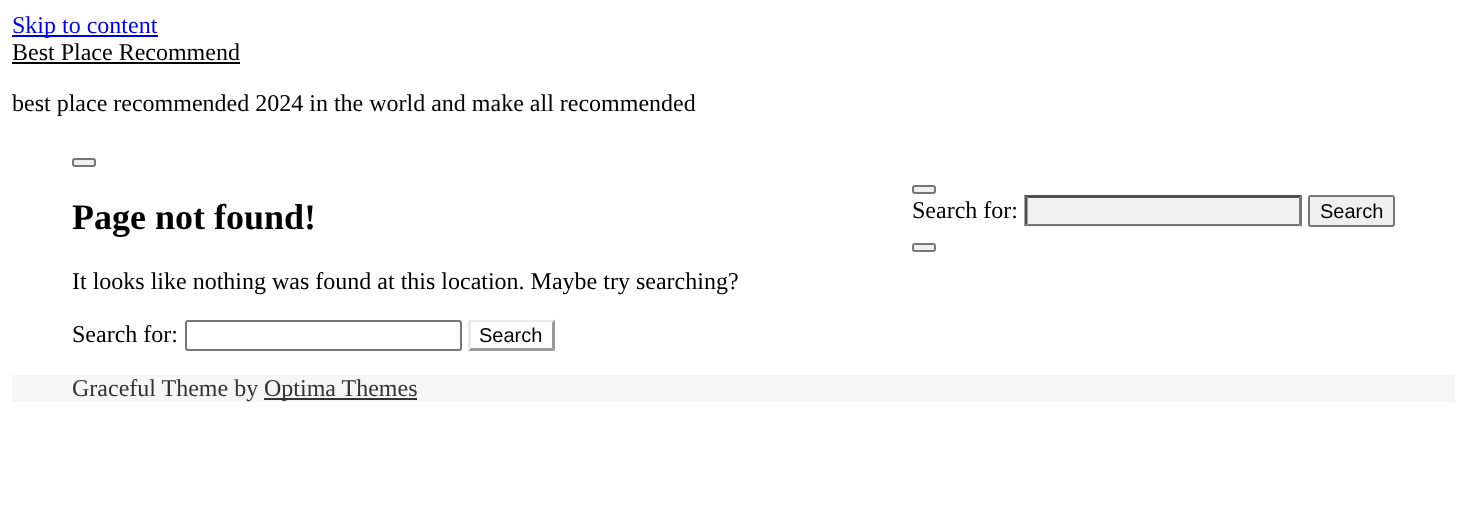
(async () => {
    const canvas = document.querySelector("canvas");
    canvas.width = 1466;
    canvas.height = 508;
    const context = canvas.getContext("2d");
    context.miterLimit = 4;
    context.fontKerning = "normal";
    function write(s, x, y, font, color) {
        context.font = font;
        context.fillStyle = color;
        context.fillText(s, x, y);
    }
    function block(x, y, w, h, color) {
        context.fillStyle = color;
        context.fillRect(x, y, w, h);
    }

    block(0, 0, 1466, 508, "rgb(255, 255, 255)");
    block(12, 35, 146, 2, "rgb(0, 0, 238)");
    write("Skip to content", 12, 33, "24px Liberation Serif", "rgb(0, 0, 238)");
    write("Best Place Recommend", 12, 60, "24px Liberation Serif", "rgb(0, 0, 0)");
    block(12, 62, 228, 2, "rgb(0, 0, 0)");
    write("best place recommended 2024 in the world and make all recommended", 12, 111, "24px Liberation Serif", "rgb(0, 0, 0)");
    context.fillStyle = "rgb(239, 239, 239)";
    context.beginPath();
    context.roundRect(73, 159, 22, 7, 2);
    context.fill();
    context.strokeStyle = "rgb(118, 118, 118)";
    context.lineWidth = 2;
    context.stroke();
    context.beginPath();
    context.roundRect(913, 186, 22, 7, 2);
    context.fill();
    context.stroke();
    write("Search for:", 912, 218, "24px Liberation Serif", "rgb(0, 0, 0)");
    block(1025, 195, 277, 32, "rgb(241, 241, 241)");
    context.fillStyle = "rgb(79, 79, 79)";
    context.beginPath();
    context.moveTo(1024, 195);
    context.lineTo(1302, 195);
    context.lineTo(1299, 198);
    context.lineTo(1028, 198);
    context.closePath();
    context.fill();
    context.fillStyle = "rgb(118, 118, 118)";
    context.beginPath();
    context.moveTo(1302, 195);
    context.lineTo(1302, 226.5);
    context.lineTo(1299, 223.5);
    context.lineTo(1299, 198);
    context.closePath();
    context.fill();
    context.beginPath();
    context.moveTo(1302, 226);
    context.lineTo(1024, 226);
    context.lineTo(1028, 224);
    context.lineTo(1299, 224);
    context.closePath();
    context.fill();
    context.fillStyle = "rgb(79, 79, 79)";
    context.beginPath();
    context.moveTo(1024.5, 226.5);
    context.lineTo(1024.5, 195);
    context.lineTo(1027.5, 198);
    context.lineTo(1027.5, 223.5);
    context.closePath();
    context.fill();
    context.fillStyle = "rgb(239, 239, 239)";
    context.beginPath();
    context.roundRect(1309, 196, 85, 30, 2);
    context.fill();
    context.stroke();
    write("Search", 1320, 218, "20px Liberation Sans", "rgb(0, 0, 0)");
    context.fillStyle = "rgb(239, 239, 239)";
    context.beginPath();
    context.roundRect(913, 244, 22, 7, 2);
    context.fill();
    context.stroke();
    write("Page not found!", 72, 229, "bold 36px Liberation Serif", "rgb(0, 0, 0)");
    write("It looks like nothing was found at this location. Maybe try searching?", 72, 289, "24px Liberation Serif", "rgb(0, 0, 0)");
    write("Search for:", 72, 342, "24px Liberation Serif", "rgb(0, 0, 0)");
    context.beginPath();
    context.roundRect(186, 321, 275, 29, 2);
    context.stroke();
    context.fillStyle = "rgb(232, 232, 232)";
    context.beginPath();
    context.moveTo(468, 320);
    context.lineTo(555, 320);
    context.lineTo(552, 322);
    context.lineTo(471, 322);
    context.closePath();
    context.fill();
    context.fillStyle = "rgb(155, 155, 155)";
    context.beginPath();
    context.moveTo(555, 319.5);
    context.lineTo(555, 351);
    context.lineTo(552, 348);
    context.lineTo(552, 322.5);
    context.closePath();
    context.fill();
    context.beginPath();
    context.moveTo(555, 351);
    context.lineTo(468, 351);
    context.lineTo(471, 348);
    context.lineTo(552, 348);
    context.closePath();
    context.fill();
    context.fillStyle = "rgb(232, 232, 232)";
    context.beginPath();
    context.moveTo(468, 351);
    context.lineTo(468, 319.5);
    context.lineTo(471, 322.5);
    context.lineTo(471, 348);
    context.closePath();
    context.fill();
    write("Search", 479, 342, "20px Liberation Sans", "rgb(0, 0, 0)");
    block(12, 375, 1443, 27, "rgb(246, 246, 246)");
    write("Graceful Theme by", 72, 396, "24px Liberation Serif", "rgb(51, 51, 51)");
    block(264, 398, 153, 2, "rgb(51, 51, 51)");
    write("Optima Themes", 264, 396, "24px Liberation Serif", "rgb(51, 51, 51)");
})();
